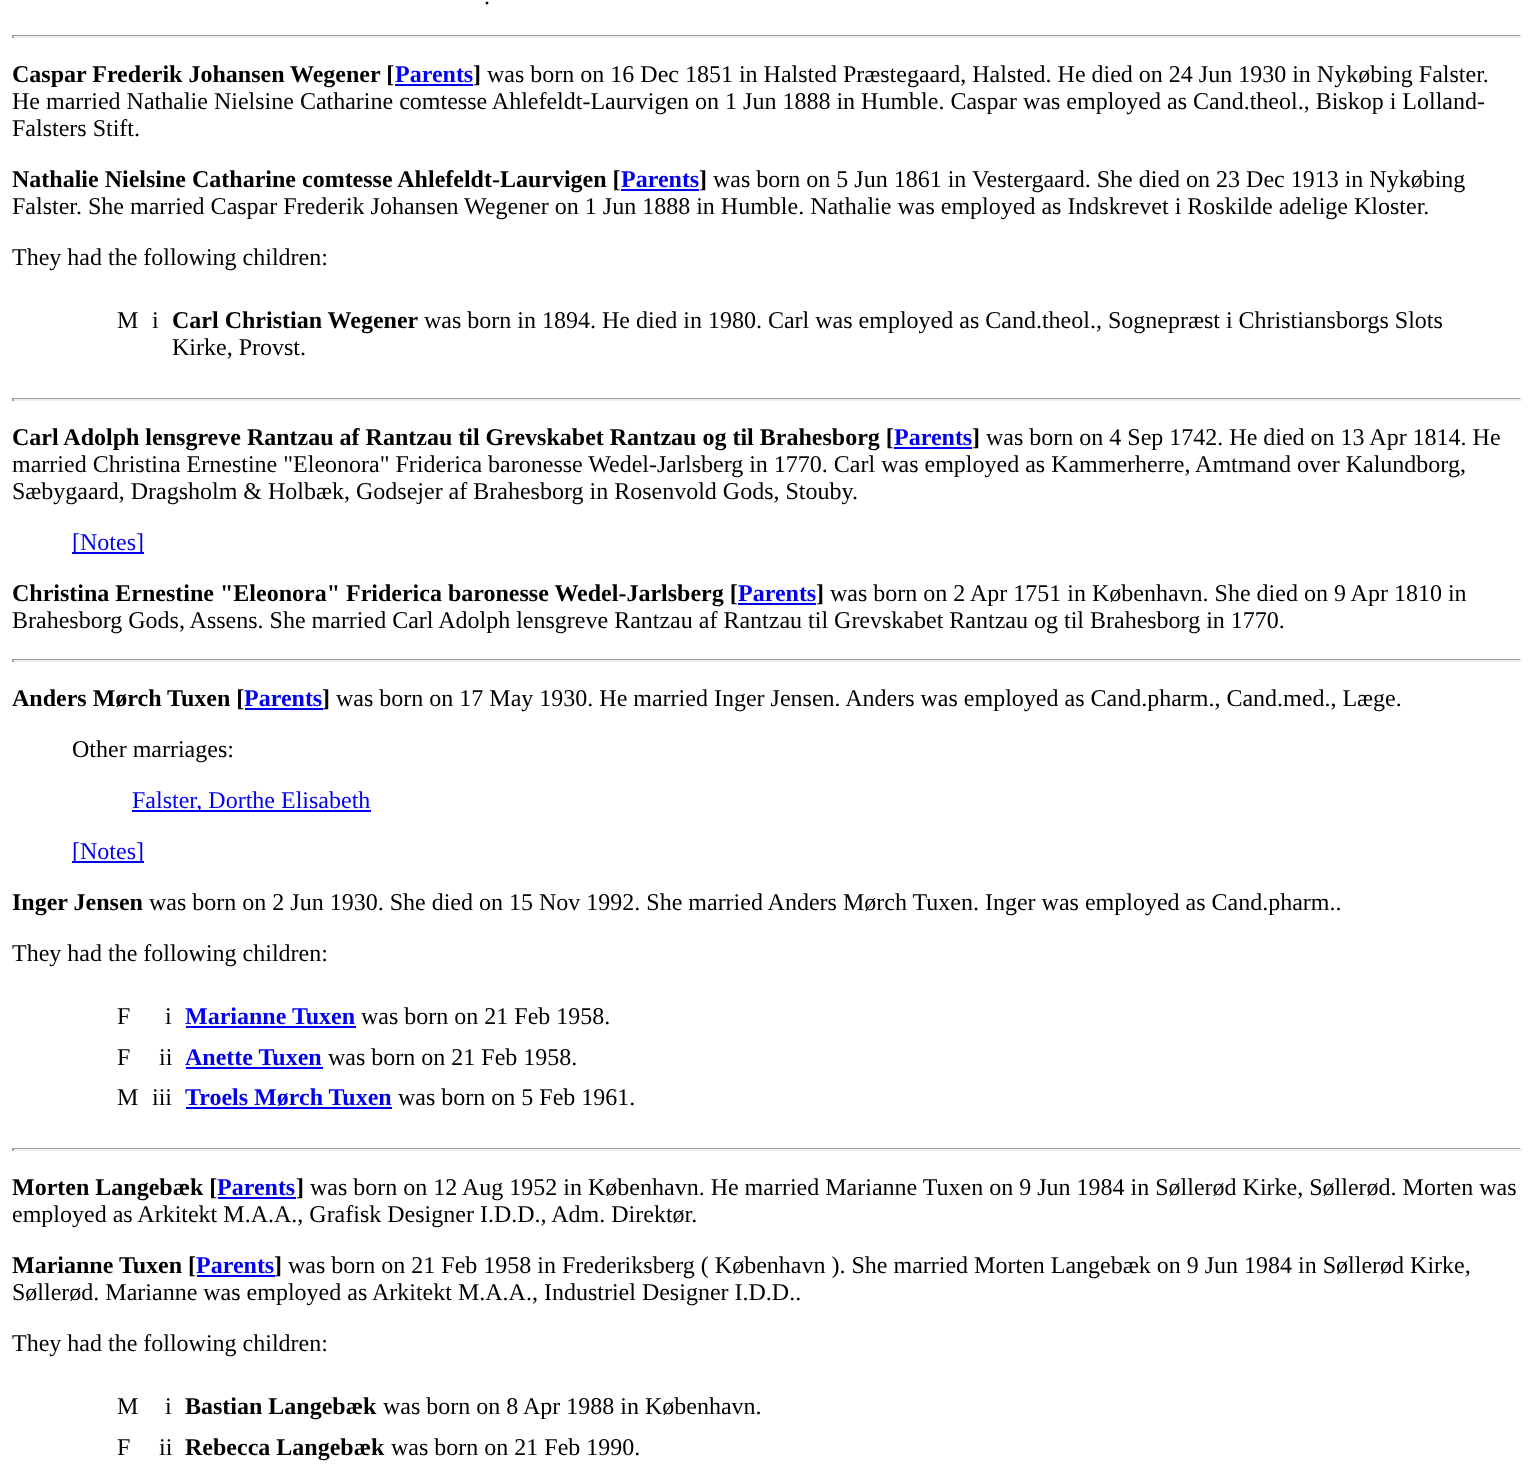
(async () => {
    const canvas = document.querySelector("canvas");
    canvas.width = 1532;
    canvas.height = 1469;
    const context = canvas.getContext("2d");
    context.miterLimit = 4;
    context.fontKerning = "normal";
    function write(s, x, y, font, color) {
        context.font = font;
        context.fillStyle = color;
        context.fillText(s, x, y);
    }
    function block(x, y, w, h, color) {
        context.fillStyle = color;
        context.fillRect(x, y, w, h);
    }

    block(0, 0, 1532, 1469, "rgb(255, 255, 255)");
    write(".", 484, 4, "24px Liberation Serif", "rgb(0, 0, 0)");
    block(12, 35, 1509, 1, "rgb(159, 159, 159)");
    block(1520, 35, 2, 3, "rgb(238, 238, 238)");
    block(12, 36, 1509, 2, "rgb(238, 238, 238)");
    block(12, 35, 2, 3, "rgb(159, 159, 159)");
    write("Caspar Frederik Johansen Wegener [", 12, 82, "bold 24px Liberation Serif", "rgb(0, 0, 0)");
    block(395, 84, 78, 2, "rgb(0, 0, 238)");
    write("Parents", 395, 82, "bold 24px Liberation Serif", "rgb(0, 0, 238)");
    write("]", 473, 82, "bold 24px Liberation Serif", "rgb(0, 0, 0)");
    write("was born on 16 Dec 1851 in Halsted Præstegaard, Halsted. He died on 24 Jun 1930 in Nykøbing Falster.", 487, 82, "24px Liberation Serif", "rgb(0, 0, 0)");
    write("He married Nathalie Nielsine Catharine comtesse Ahlefeldt-Laurvigen on 1 Jun 1888 in Humble. Caspar was employed as Cand.theol., Biskop i Lolland-", 12, 109, "24px Liberation Serif", "rgb(0, 0, 0)");
    write("Falsters Stift.", 12, 136, "24px Liberation Serif", "rgb(0, 0, 0)");
    write("Nathalie Nielsine Catharine comtesse Ahlefeldt-Laurvigen [", 12, 187, "bold 24px Liberation Serif", "rgb(0, 0, 0)");
    block(621, 189, 78, 2, "rgb(0, 0, 238)");
    write("Parents", 621, 187, "bold 24px Liberation Serif", "rgb(0, 0, 238)");
    write("]", 699, 187, "bold 24px Liberation Serif", "rgb(0, 0, 0)");
    write("was born on 5 Jun 1861 in Vestergaard. She died on 23 Dec 1913 in Nykøbing", 713, 187, "24px Liberation Serif", "rgb(0, 0, 0)");
    write("Falster. She married Caspar Frederik Johansen Wegener on 1 Jun 1888 in Humble. Nathalie was employed as Indskrevet i Roskilde adelige Kloster.", 12, 214, "24px Liberation Serif", "rgb(0, 0, 0)");
    write("They had the following children:", 12, 265, "24px Liberation Serif", "rgb(0, 0, 0)");
    write("M", 117, 328, "24px Liberation Serif", "rgb(0, 0, 0)");
    write("i", 152, 328, "24px Liberation Serif", "rgb(0, 0, 0)");
    write("Carl Christian Wegener", 172, 328, "bold 24px Liberation Serif", "rgb(0, 0, 0)");
    write("was born in 1894. He died in 1980. Carl was employed as Cand.theol., Sognepræst i Christiansborgs Slots", 424, 328, "24px Liberation Serif", "rgb(0, 0, 0)");
    write("Kirke, Provst.", 172, 355, "24px Liberation Serif", "rgb(0, 0, 0)");
    block(12, 398, 1509, 1, "rgb(159, 159, 159)");
    block(1520, 398, 2, 3, "rgb(238, 238, 238)");
    block(12, 399, 1509, 2, "rgb(238, 238, 238)");
    block(12, 398, 2, 3, "rgb(159, 159, 159)");
    write("Carl Adolph lensgreve Rantzau af Rantzau til Grevskabet Rantzau og til Brahesborg [", 12, 445, "bold 24px Liberation Serif", "rgb(0, 0, 0)");
    block(894, 447, 78, 2, "rgb(0, 0, 238)");
    write("Parents", 894, 445, "bold 24px Liberation Serif", "rgb(0, 0, 238)");
    write("]", 972, 445, "bold 24px Liberation Serif", "rgb(0, 0, 0)");
    write("was born on 4 Sep 1742. He died on 13 Apr 1814. He", 986, 445, "24px Liberation Serif", "rgb(0, 0, 0)");
    write("married Christina Ernestine \"Eleonora\" Friderica baronesse Wedel-Jarlsberg in 1770. Carl was employed as Kammerherre, Amtmand over Kalundborg,", 12, 472, "24px Liberation Serif", "rgb(0, 0, 0)");
    write("Sæbygaard, Dragsholm & Holbæk, Godsejer af Brahesborg in Rosenvold Gods, Stouby.", 12, 499, "24px Liberation Serif", "rgb(0, 0, 0)");
    block(72, 552, 72, 2, "rgb(0, 0, 238)");
    write("[Notes]", 72, 550, "24px Liberation Serif", "rgb(0, 0, 238)");
    write("Christina Ernestine \"Eleonora\" Friderica baronesse Wedel-Jarlsberg [", 12, 601, "bold 24px Liberation Serif", "rgb(0, 0, 0)");
    block(738, 603, 78, 2, "rgb(0, 0, 238)");
    write("Parents", 738, 601, "bold 24px Liberation Serif", "rgb(0, 0, 238)");
    write("]", 816, 601, "bold 24px Liberation Serif", "rgb(0, 0, 0)");
    write("was born on 2 Apr 1751 in København. She died on 9 Apr 1810 in", 830, 601, "24px Liberation Serif", "rgb(0, 0, 0)");
    write("Brahesborg Gods, Assens. She married Carl Adolph lensgreve Rantzau af Rantzau til Grevskabet Rantzau og til Brahesborg in 1770.", 12, 628, "24px Liberation Serif", "rgb(0, 0, 0)");
    block(12, 659, 1509, 1, "rgb(159, 159, 159)");
    block(1520, 659, 2, 3, "rgb(238, 238, 238)");
    block(12, 660, 1509, 2, "rgb(238, 238, 238)");
    block(12, 659, 2, 3, "rgb(159, 159, 159)");
    write("Anders Mørch Tuxen [", 12, 706, "bold 24px Liberation Serif", "rgb(0, 0, 0)");
    write("Parents", 244, 706, "bold 24px Liberation Serif", "rgb(0, 0, 238)");
    write("]", 322, 706, "bold 24px Liberation Serif", "rgb(0, 0, 0)");
    block(245, 708, 78, 2, "rgb(0, 0, 238)");
    write("was born on 17 May 1930. He married Inger Jensen. Anders was employed as Cand.pharm., Cand.med., Læge.", 336, 706, "24px Liberation Serif", "rgb(0, 0, 0)");
    write("Other marriages:", 72, 757, "24px Liberation Serif", "rgb(0, 0, 0)");
    block(132, 810, 239, 2, "rgb(0, 0, 238)");
    write("Falster, Dorthe Elisabeth", 132, 808, "24px Liberation Serif", "rgb(0, 0, 238)");
    block(72, 861, 72, 2, "rgb(0, 0, 238)");
    write("[Notes]", 72, 859, "24px Liberation Serif", "rgb(0, 0, 238)");
    write("Inger Jensen", 12, 910, "bold 24px Liberation Serif", "rgb(0, 0, 0)");
    write("was born on 2 Jun 1930. She died on 15 Nov 1992. She married Anders Mørch Tuxen. Inger was employed as Cand.pharm..", 149, 910, "24px Liberation Serif", "rgb(0, 0, 0)");
    write("They had the following children:", 12, 961, "24px Liberation Serif", "rgb(0, 0, 0)");
    write("F", 117, 1024, "24px Liberation Serif", "rgb(0, 0, 0)");
    write("i", 165, 1024, "24px Liberation Serif", "rgb(0, 0, 0)");
    write("Marianne Tuxen", 185, 1024, "bold 24px Liberation Serif", "rgb(0, 0, 238)");
    block(186, 1026, 170, 2, "rgb(0, 0, 238)");
    write("was born on 21 Feb 1958.", 361, 1024, "24px Liberation Serif", "rgb(0, 0, 0)");
    write("F", 117, 1065, "24px Liberation Serif", "rgb(0, 0, 0)");
    write("ii", 159, 1065, "24px Liberation Serif", "rgb(0, 0, 0)");
    write("Anette Tuxen", 185, 1065, "bold 24px Liberation Serif", "rgb(0, 0, 238)");
    block(186, 1067, 137, 2, "rgb(0, 0, 238)");
    write("was born on 21 Feb 1958.", 328, 1065, "24px Liberation Serif", "rgb(0, 0, 0)");
    write("M", 117, 1105, "24px Liberation Serif", "rgb(0, 0, 0)");
    write("iii", 152, 1105, "24px Liberation Serif", "rgb(0, 0, 0)");
    write("Troels Mørch Tuxen", 185, 1105, "bold 24px Liberation Serif", "rgb(0, 0, 238)");
    block(186, 1107, 206, 2, "rgb(0, 0, 238)");
    write("was born on 5 Feb 1961.", 398, 1105, "24px Liberation Serif", "rgb(0, 0, 0)");
    block(12, 1148, 1509, 1, "rgb(159, 159, 159)");
    block(1520, 1148, 2, 3, "rgb(238, 238, 238)");
    block(12, 1149, 1509, 2, "rgb(238, 238, 238)");
    block(12, 1148, 2, 3, "rgb(159, 159, 159)");
    write("Morten Langebæk [", 12, 1195, "bold 24px Liberation Serif", "rgb(0, 0, 0)");
    block(218, 1197, 78, 2, "rgb(0, 0, 238)");
    write("Parents", 217, 1195, "bold 24px Liberation Serif", "rgb(0, 0, 238)");
    write("]", 296, 1195, "bold 24px Liberation Serif", "rgb(0, 0, 0)");
    write("was born on 12 Aug 1952 in København. He married Marianne Tuxen on 9 Jun 1984 in Søllerød Kirke, Søllerød. Morten was", 310, 1195, "24px Liberation Serif", "rgb(0, 0, 0)");
    write("employed as Arkitekt M.A.A., Grafisk Designer I.D.D., Adm. Direktør.", 12, 1222, "24px Liberation Serif", "rgb(0, 0, 0)");
    write("Marianne Tuxen [", 12, 1273, "bold 24px Liberation Serif", "rgb(0, 0, 0)");
    write("Parents", 196, 1273, "bold 24px Liberation Serif", "rgb(0, 0, 238)");
    write("]", 274, 1273, "bold 24px Liberation Serif", "rgb(0, 0, 0)");
    block(197, 1275, 78, 2, "rgb(0, 0, 238)");
    write("was born on 21 Feb 1958 in Frederiksberg ( København ). She married Morten Langebæk on 9 Jun 1984 in Søllerød Kirke,", 288, 1273, "24px Liberation Serif", "rgb(0, 0, 0)");
    write("Søllerød. Marianne was employed as Arkitekt M.A.A., Industriel Designer I.D.D..", 12, 1300, "24px Liberation Serif", "rgb(0, 0, 0)");
    write("They had the following children:", 12, 1351, "24px Liberation Serif", "rgb(0, 0, 0)");
    write("M", 117, 1414, "24px Liberation Serif", "rgb(0, 0, 0)");
    write("i", 165, 1414, "24px Liberation Serif", "rgb(0, 0, 0)");
    write("Bastian Langebæk", 185, 1414, "bold 24px Liberation Serif", "rgb(0, 0, 0)");
    write("was born on 8 Apr 1988 in København.", 383, 1414, "24px Liberation Serif", "rgb(0, 0, 0)");
    write("F", 117, 1455, "24px Liberation Serif", "rgb(0, 0, 0)");
    write("ii", 159, 1455, "24px Liberation Serif", "rgb(0, 0, 0)");
    write("Rebecca Langebæk", 185, 1455, "bold 24px Liberation Serif", "rgb(0, 0, 0)");
    write("was born on 21 Feb 1990.", 391, 1455, "24px Liberation Serif", "rgb(0, 0, 0)");
})();
